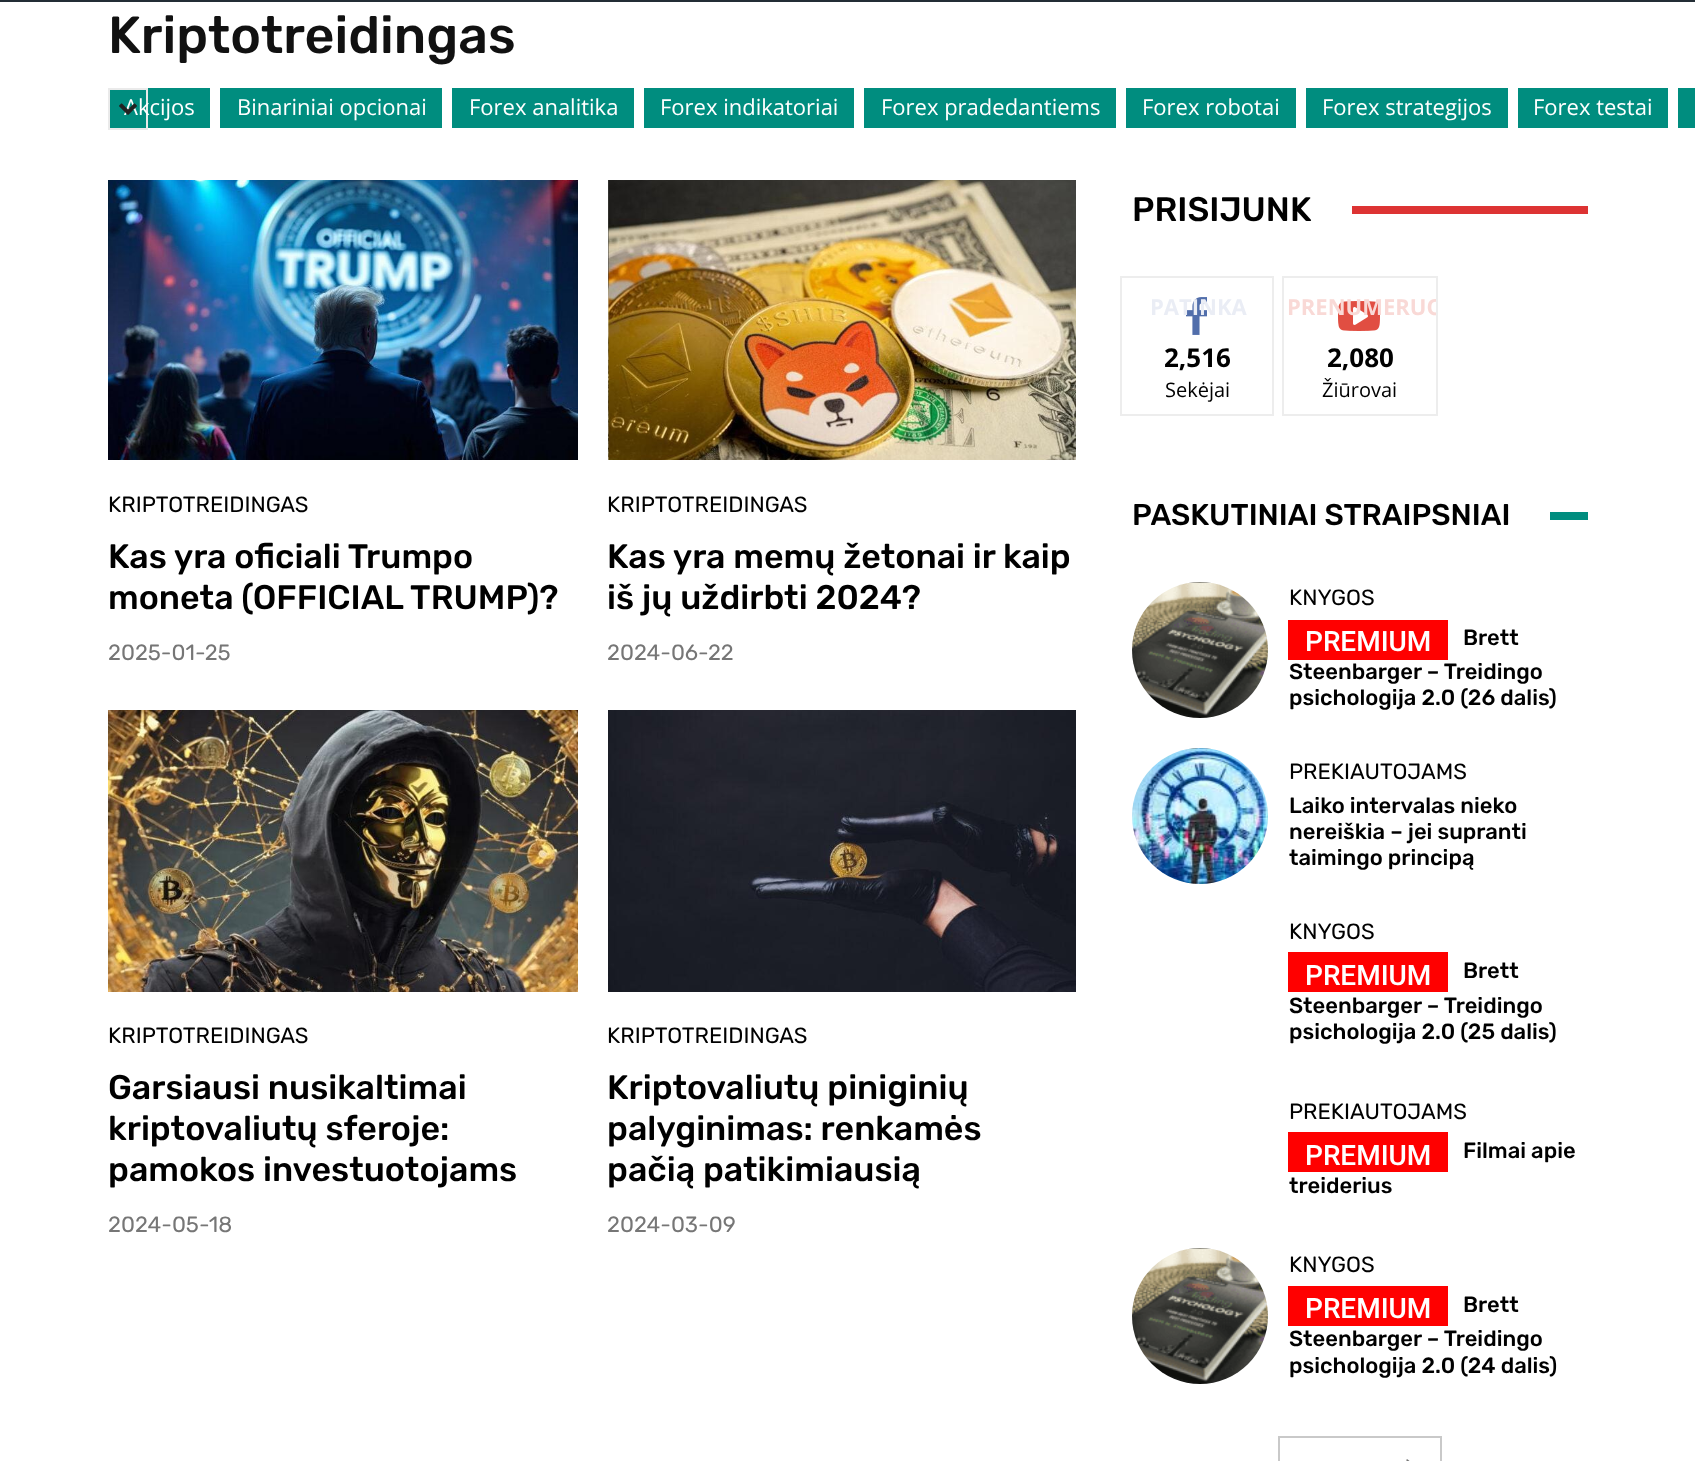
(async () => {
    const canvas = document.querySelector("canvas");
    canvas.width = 1695;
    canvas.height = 1461;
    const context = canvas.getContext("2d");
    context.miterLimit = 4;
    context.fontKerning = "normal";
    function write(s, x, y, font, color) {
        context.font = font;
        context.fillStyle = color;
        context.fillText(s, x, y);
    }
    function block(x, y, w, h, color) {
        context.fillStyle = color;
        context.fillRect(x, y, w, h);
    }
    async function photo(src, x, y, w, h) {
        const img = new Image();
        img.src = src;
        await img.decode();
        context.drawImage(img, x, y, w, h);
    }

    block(0, 0, 1695, 1461, "rgb(255, 255, 255)");
    block(0, 0, 1695, 2, "rgb(35, 45, 53)");
    write("Kriptotreidingas", 108, 53, "500 52px Rubik", "rgb(17, 17, 17)");
    block(110, 88, 100, 40, "rgb(0, 141, 127)");
    context.strokeStyle = "rgb(234, 234, 234)";
    context.lineWidth = 2;
    context.strokeRect(109, 89, 38, 40);
    write("Akcijos", 124, 115, "22px Open Sans", "rgb(255, 255, 255)");
    await photo("media/1.png", 119, 103, 18, 12);
    block(220, 88, 222, 40, "rgb(0, 141, 127)");
    write("Binariniai opcionai", 237, 115, "22px Open Sans", "rgb(255, 255, 255)");
    block(452, 88, 182, 40, "rgb(0, 141, 127)");
    write("Forex analitika", 469, 115, "22px Open Sans", "rgb(255, 255, 255)");
    block(644, 88, 210, 40, "rgb(0, 141, 127)");
    write("Forex indikatoriai", 660, 115, "22px Open Sans", "rgb(255, 255, 255)");
    block(864, 88, 252, 40, "rgb(0, 141, 127)");
    write("Forex pradedantiems", 881, 115, "22px Open Sans", "rgb(255, 255, 255)");
    block(1126, 88, 170, 40, "rgb(0, 141, 127)");
    write("Forex robotai", 1142, 115, "22px Open Sans", "rgb(255, 255, 255)");
    block(1306, 88, 202, 40, "rgb(0, 141, 127)");
    write("Forex strategijos", 1322, 115, "22px Open Sans", "rgb(255, 255, 255)");
    block(1518, 88, 150, 40, "rgb(0, 141, 127)");
    write("Forex testai", 1533, 115, "22px Open Sans", "rgb(255, 255, 255)");
    block(1678, 88, 17, 40, "rgb(0, 141, 127)");
    await photo("media/2.png", 108, 180, 470, 280);
    write("KRIPTOTREIDINGAS", 108, 512, "22px Rubik", "rgb(0, 0, 0)");
    write("Kas yra oficiali Trumpo", 108, 568, "500 34px Rubik", "rgb(0, 0, 0)");
    write("moneta (OFFICIAL TRUMP)?", 108, 609, "500 34px Rubik", "rgb(0, 0, 0)");
    write("2025-01-25", 108, 660, "22px Rubik", "rgb(118, 118, 118)");
    await photo("media/3.png", 608, 180, 468, 280);
    write("KRIPTOTREIDINGAS", 607, 512, "22px Rubik", "rgb(0, 0, 0)");
    write("Kas yra memų žetonai ir kaip", 607, 568, "500 34px Rubik", "rgb(0, 0, 0)");
    write("iš jų uždirbti 2024?", 607, 609, "500 34px Rubik", "rgb(0, 0, 0)");
    write("2024-06-22", 607, 660, "22px Rubik", "rgb(118, 118, 118)");
    await photo("media/4.png", 108, 710, 470, 282);
    write("KRIPTOTREIDINGAS", 108, 1043, "22px Rubik", "rgb(0, 0, 0)");
    write("Garsiausi nusikaltimai", 108, 1099, "500 34px Rubik", "rgb(0, 0, 0)");
    write("kriptovaliutų sferoje:", 108, 1140, "500 34px Rubik", "rgb(0, 0, 0)");
    write("pamokos investuotojams", 108, 1181, "500 34px Rubik", "rgb(0, 0, 0)");
    write("2024-05-18", 108, 1232, "22px Rubik", "rgb(118, 118, 118)");
    await photo("media/5.png", 608, 710, 468, 282);
    write("KRIPTOTREIDINGAS", 607, 1043, "22px Rubik", "rgb(0, 0, 0)");
    write("Kriptovaliutų piniginių", 607, 1099, "500 34px Rubik", "rgb(0, 0, 0)");
    write("palyginimas: renkamės", 607, 1140, "500 34px Rubik", "rgb(0, 0, 0)");
    write("pačią patikimiausią", 607, 1181, "500 34px Rubik", "rgb(0, 0, 0)");
    write("2024-03-09", 607, 1232, "22px Rubik", "rgb(118, 118, 118)");
    write("PRISIJUNK", 1132, 221, "500 34px Rubik", "rgb(0, 0, 0)");
    block(1352, 206, 236, 8, "rgb(221, 51, 51)");
    context.strokeStyle = "rgb(237, 237, 237)";
    context.strokeRect(1121, 277, 152, 138);
    await photo("media/6.png", 1186, 297, 21, 38);
    write("PATINKA", 1150, 315, "bold 22px Open Sans", "rgb(234, 237, 245)");
    write("2,516", 1164, 367, "bold 26px Open Sans", "rgb(0, 0, 0)");
    write("Sekėjai", 1165, 397, "20px Open Sans", "rgb(0, 0, 0)");
    context.strokeRect(1283, 277, 154, 138);
    await photo("media/7.png", 1338, 301, 42, 30);
    context.save();
    context.beginPath();
    context.rect(1284, 278, 152, 136);
    context.clip();
    write("PRENUMERUO", 1287, 315, "bold 22px Open Sans", "rgb(249, 217, 214)");
    context.restore();
    write("2,080", 1327, 367, "bold 26px Open Sans", "rgb(0, 0, 0)");
    write("Žiūrovai", 1322, 397, "20px Open Sans", "rgb(0, 0, 0)");
    write("PASKUTINIAI STRAIPSNIAI", 1132, 525, "500 30px Rubik", "rgb(0, 0, 0)");
    block(1550, 512, 38, 8, "rgb(0, 141, 127)");
    await photo("media/8.png", 1132, 582, 136, 136);
    write("KNYGOS", 1289, 605, "22px Rubik", "rgb(0, 0, 0)");
    block(1288, 620, 160, 40, "rgb(255, 0, 0)");
    write("PREMIUM", 1305, 651, "500 28px Roboto", "rgb(255, 255, 255)");
    write("Brett", 1463, 645, "500 22px Rubik", "rgb(0, 0, 0)");
    write("Steenbarger – Treidingo", 1289, 679, "500 22px Rubik", "rgb(0, 0, 0)");
    write("psichologija 2.0 (26 dalis)", 1289, 705, "500 22px Rubik", "rgb(0, 0, 0)");
    await photo("media/9.png", 1132, 748, 136, 136);
    write("PREKIAUTOJAMS", 1289, 779, "22px Rubik", "rgb(0, 0, 0)");
    write("Laiko intervalas nieko", 1289, 813, "500 22px Rubik", "rgb(0, 0, 0)");
    write("nereiškia – jei supranti", 1289, 839, "500 22px Rubik", "rgb(0, 0, 0)");
    write("taimingo principą", 1289, 865, "500 22px Rubik", "rgb(0, 0, 0)");
    write("KNYGOS", 1289, 939, "22px Rubik", "rgb(0, 0, 0)");
    block(1288, 952, 160, 40, "rgb(255, 0, 0)");
    write("PREMIUM", 1305, 985, "500 28px Roboto", "rgb(255, 255, 255)");
    write("Brett", 1463, 978, "500 22px Rubik", "rgb(0, 0, 0)");
    write("Steenbarger – Treidingo", 1289, 1013, "500 22px Rubik", "rgb(0, 0, 0)");
    write("psichologija 2.0 (25 dalis)", 1289, 1039, "500 22px Rubik", "rgb(0, 0, 0)");
    write("PREKIAUTOJAMS", 1289, 1119, "22px Rubik", "rgb(0, 0, 0)");
    block(1288, 1132, 160, 40, "rgb(255, 0, 0)");
    write("PREMIUM", 1305, 1165, "500 28px Roboto", "rgb(255, 255, 255)");
    write("Filmai apie", 1463, 1158, "500 22px Rubik", "rgb(0, 0, 0)");
    write("treiderius", 1289, 1193, "500 22px Rubik", "rgb(0, 0, 0)");
    await photo("media/8.png", 1132, 1248, 136, 136);
    write("KNYGOS", 1289, 1272, "22px Rubik", "rgb(0, 0, 0)");
    block(1288, 1286, 160, 40, "rgb(255, 0, 0)");
    write("PREMIUM", 1305, 1318, "500 28px Roboto", "rgb(255, 255, 255)");
    write("Brett", 1463, 1312, "500 22px Rubik", "rgb(0, 0, 0)");
    write("Steenbarger – Treidingo", 1289, 1346, "500 22px Rubik", "rgb(0, 0, 0)");
    write("psichologija 2.0 (24 dalis)", 1289, 1373, "500 22px Rubik", "rgb(0, 0, 0)");
    context.strokeStyle = "rgb(201, 201, 201)";
    context.strokeRect(1279, 1437, 162, 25);
    await photo("media/10.png", 1406, 1459, 4, 2);
})();
